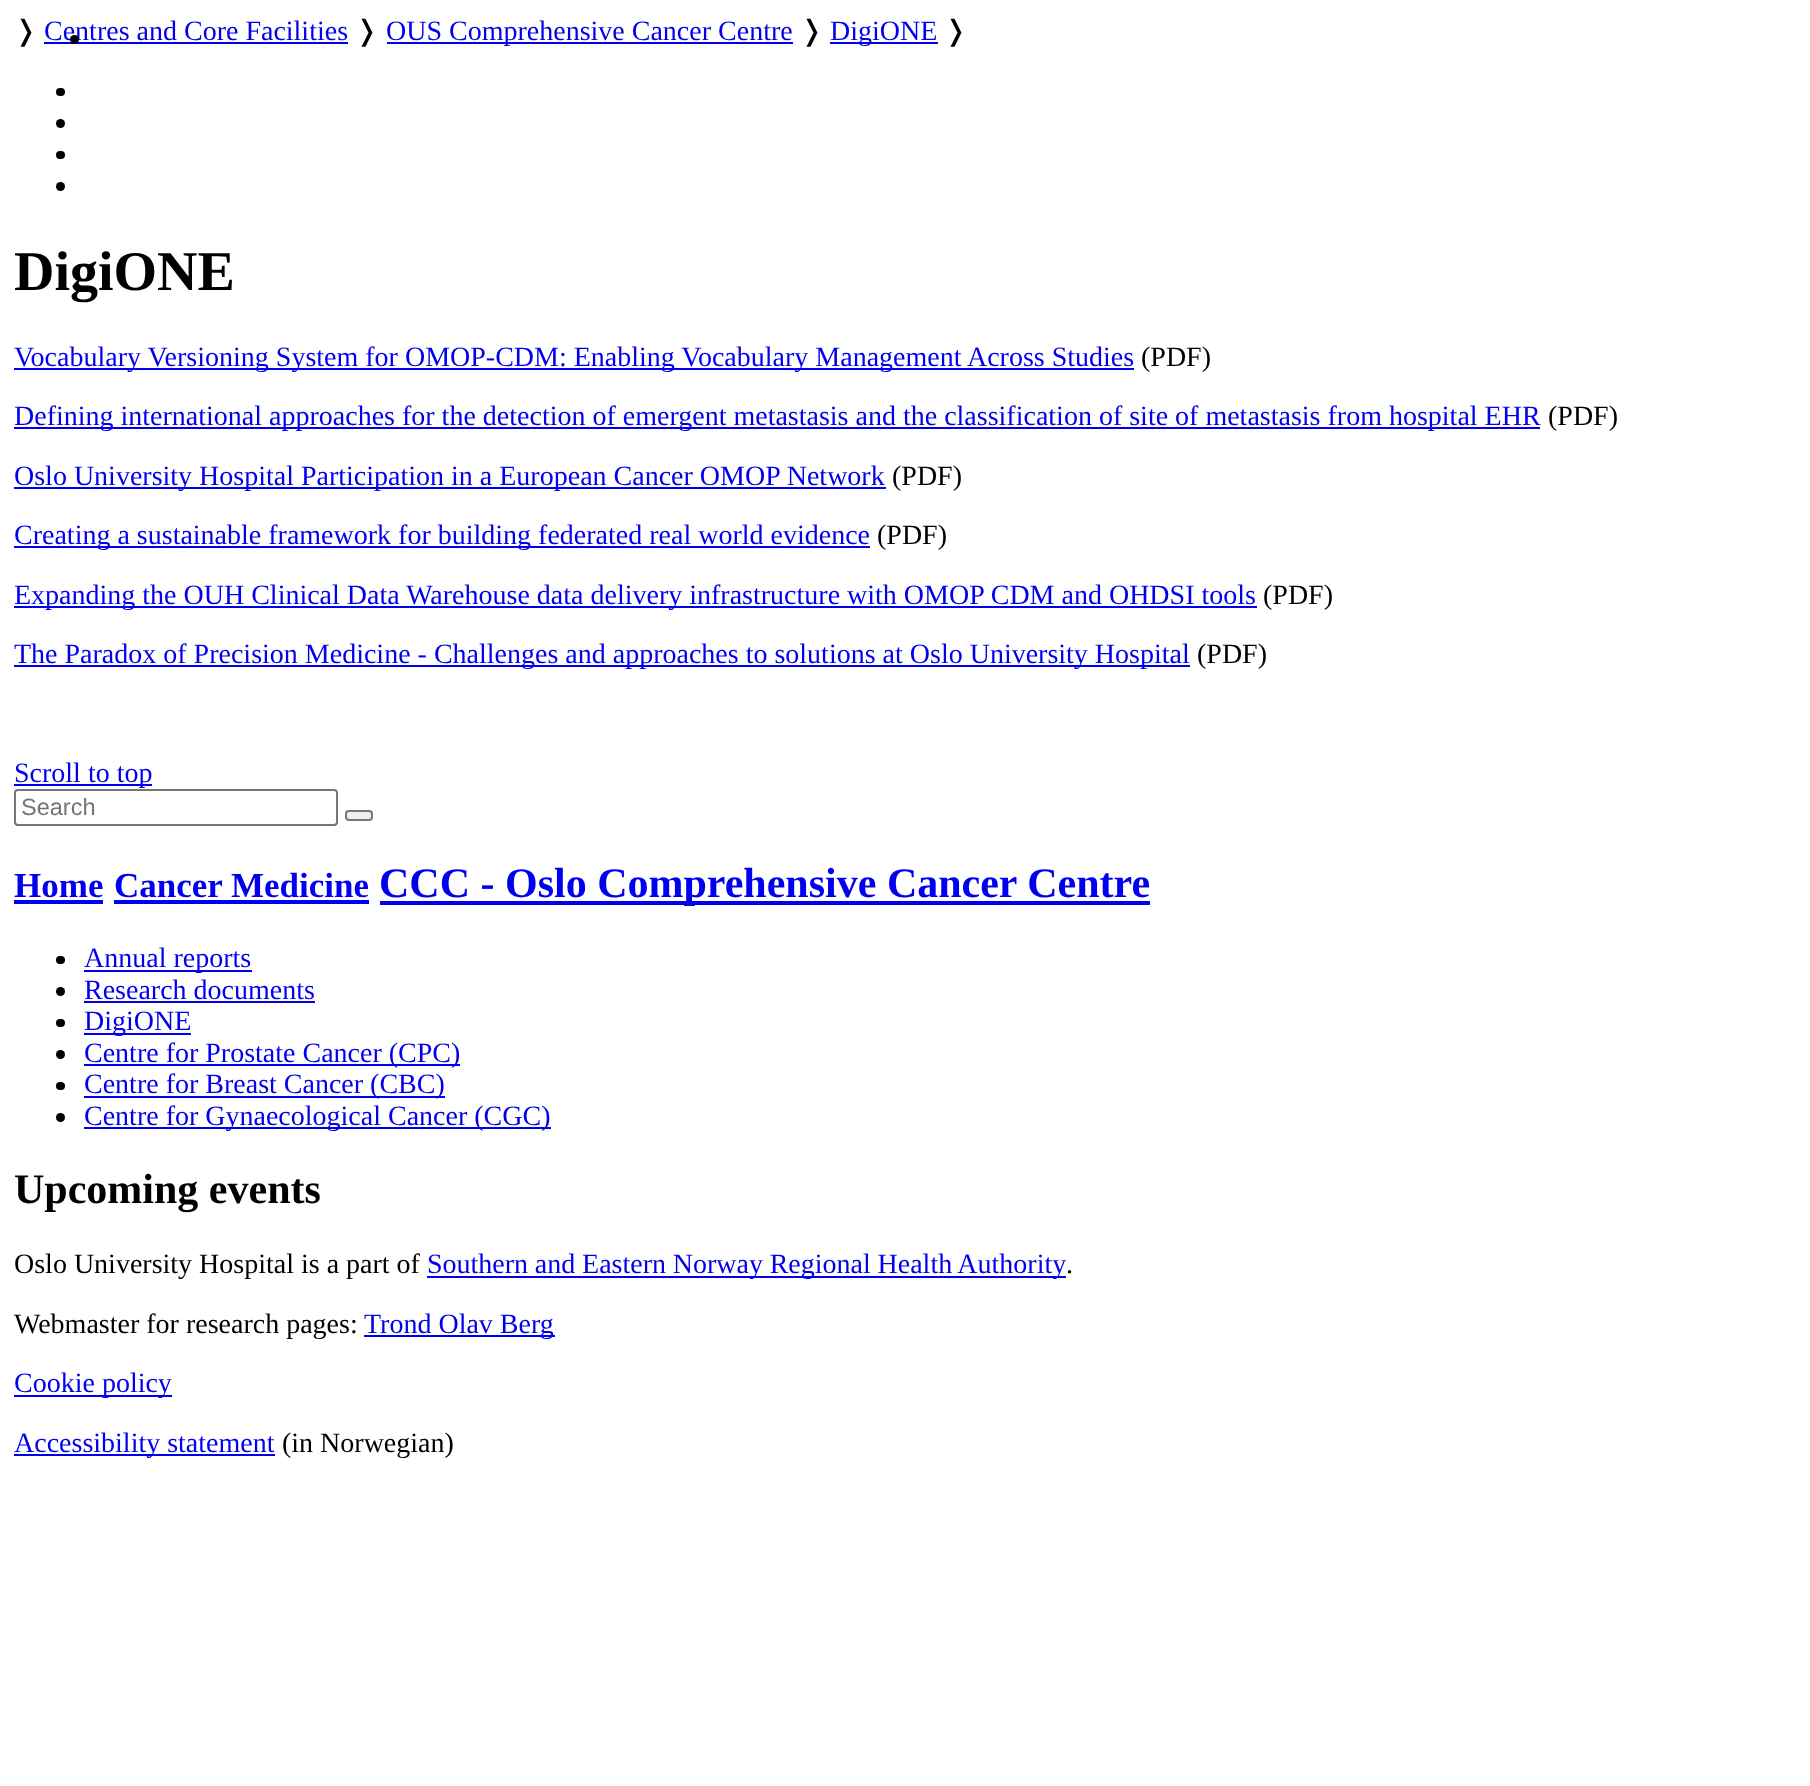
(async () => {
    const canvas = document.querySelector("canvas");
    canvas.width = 1810;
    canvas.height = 1786;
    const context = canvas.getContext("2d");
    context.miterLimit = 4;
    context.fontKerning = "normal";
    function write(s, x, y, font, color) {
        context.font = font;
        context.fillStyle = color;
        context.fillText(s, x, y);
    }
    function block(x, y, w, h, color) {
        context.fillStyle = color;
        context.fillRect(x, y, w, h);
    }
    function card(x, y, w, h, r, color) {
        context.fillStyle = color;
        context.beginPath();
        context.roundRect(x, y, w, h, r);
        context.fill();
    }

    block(0, 0, 1810, 1786, "rgb(255, 255, 255)");
    write("❭", 14, 40, "28px DejaVu Sans", "rgb(0, 0, 0)");
    write("Centres and Core Facilities", 44, 40, "28px Liberation Serif", "rgb(0, 0, 238)");
    block(44, 42, 304, 2, "rgb(0, 0, 238)");
    write("❭", 355, 40, "28px DejaVu Sans", "rgb(0, 0, 0)");
    block(387, 42, 406, 2, "rgb(0, 0, 238)");
    write("OUS Comprehensive Cancer Centre", 386, 40, "28px Liberation Serif", "rgb(0, 0, 238)");
    write("❭", 800, 40, "28px DejaVu Sans", "rgb(0, 0, 0)");
    block(830, 42, 108, 2, "rgb(0, 0, 238)");
    write("DigiONE", 830, 40, "28px Liberation Serif", "rgb(0, 0, 238)");
    write("❭", 944, 40, "28px DejaVu Sans", "rgb(0, 0, 0)");
    card(56, 88, 9, 8, 4, "rgb(0, 0, 0)");
    context.beginPath();
    context.arc(60.5, 123.5, 4.5, 0, Math.PI * 2);
    context.fill();
    card(56, 151, 9, 8, 4, "rgb(0, 0, 0)");
    context.beginPath();
    context.arc(60.5, 186.5, 4.5, 0, Math.PI * 2);
    context.fill();
    write("DigiONE", 14, 290, "bold 56px Liberation Serif", "rgb(0, 0, 0)");
    block(14, 368, 1120, 2, "rgb(0, 0, 238)");
    write("Vocabulary Versioning System for OMOP-CDM: Enabling Vocabulary Management Across Studies", 14, 366, "28px Liberation Serif", "rgb(0, 0, 238)");
    write("(PDF)", 1141, 366, "28px Liberation Serif", "rgb(0, 0, 0)");
    block(14, 427, 1526, 2, "rgb(0, 0, 238)");
    write("Defining international approaches for the detection of emergent metastasis and the classification of site of metastasis from hospital EHR", 14, 425, "28px Liberation Serif", "rgb(0, 0, 238)");
    write("(PDF)", 1548, 425, "28px Liberation Serif", "rgb(0, 0, 0)");
    block(14, 487, 872, 2, "rgb(0, 0, 238)");
    write("Oslo University Hospital Participation in a European Cancer OMOP Network", 14, 485, "28px Liberation Serif", "rgb(0, 0, 238)");
    write("(PDF)", 892, 485, "28px Liberation Serif", "rgb(0, 0, 0)");
    block(14, 546, 856, 2, "rgb(0, 0, 238)");
    write("Creating a sustainable framework for building federated real world evidence", 14, 544, "28px Liberation Serif", "rgb(0, 0, 238)");
    write("(PDF)", 877, 544, "28px Liberation Serif", "rgb(0, 0, 0)");
    block(14, 606, 1243, 2, "rgb(0, 0, 238)");
    write("Expanding the OUH Clinical Data Warehouse data delivery infrastructure with OMOP CDM and OHDSI tools", 14, 604, "28px Liberation Serif", "rgb(0, 0, 238)");
    write("(PDF)", 1263, 604, "28px Liberation Serif", "rgb(0, 0, 0)");
    block(14, 665, 1176, 2, "rgb(0, 0, 238)");
    write("The Paradox of Precision Medicine - Challenges and approaches to solutions at Oslo University Hospital", 14, 663, "28px Liberation Serif", "rgb(0, 0, 238)");
    write("(PDF)", 1197, 663, "28px Liberation Serif", "rgb(0, 0, 0)");
    block(14, 784, 138, 2, "rgb(0, 0, 238)");
    write("Scroll to top", 14, 782, "28px Liberation Serif", "rgb(0, 0, 238)");
    context.fillStyle = "rgb(0, 0, 0)";
    context.beginPath();
    context.arc(74.5, 39.5, 4.5, 0, Math.PI * 2);
    context.fill();
    context.beginPath();
    context.roundRect(15, 790, 322, 35, 3);
    context.strokeStyle = "rgb(118, 118, 118)";
    context.lineWidth = 2;
    context.stroke();
    write("Search", 21, 815, "23.5px Liberation Sans", "rgb(117, 117, 117)");
    context.fillStyle = "rgb(239, 239, 239)";
    context.beginPath();
    context.roundRect(346, 811, 26, 9, 3);
    context.fill();
    context.stroke();
    write("Home", 14, 897, "bold 35px Liberation Serif", "rgb(0, 0, 238)");
    block(14, 900, 89, 4, "rgb(0, 0, 238)");
    write("Cancer Medicine", 114, 897, "bold 35px Liberation Serif", "rgb(0, 0, 238)");
    block(114, 900, 255, 4, "rgb(0, 0, 238)");
    block(380, 901, 770, 4, "rgb(0, 0, 238)");
    write("CCC - Oslo Comprehensive Cancer Centre", 379, 897, "bold 42px Liberation Serif", "rgb(0, 0, 238)");
    card(56, 956, 9, 8, 4, "rgb(0, 0, 0)");
    block(84, 970, 168, 2, "rgb(0, 0, 238)");
    write("Annual reports", 84, 967, "28px Liberation Serif", "rgb(0, 0, 238)");
    context.fillStyle = "rgb(0, 0, 0)";
    context.beginPath();
    context.arc(60.5, 991.5, 4.5, 0, Math.PI * 2);
    context.fill();
    write("Research documents", 84, 999, "28px Liberation Serif", "rgb(0, 0, 238)");
    block(84, 1001, 231, 2, "rgb(0, 0, 238)");
    card(56, 1019, 9, 8, 4, "rgb(0, 0, 0)");
    block(84, 1033, 107, 2, "rgb(0, 0, 238)");
    write("DigiONE", 84, 1030, "28px Liberation Serif", "rgb(0, 0, 238)");
    context.fillStyle = "rgb(0, 0, 0)";
    context.beginPath();
    context.arc(60.5, 1054.5, 4.5, 0, Math.PI * 2);
    context.fill();
    block(84, 1064, 376, 2, "rgb(0, 0, 238)");
    write("Centre for Prostate Cancer (CPC)", 84, 1062, "28px Liberation Serif", "rgb(0, 0, 238)");
    card(56, 1082, 9, 8, 4, "rgb(0, 0, 0)");
    block(84, 1096, 361, 2, "rgb(0, 0, 238)");
    write("Centre for Breast Cancer (CBC)", 84, 1093, "28px Liberation Serif", "rgb(0, 0, 238)");
    context.fillStyle = "rgb(0, 0, 0)";
    context.beginPath();
    context.arc(60.5, 1117.5, 4.5, 0, Math.PI * 2);
    context.fill();
    block(84, 1127, 467, 2, "rgb(0, 0, 238)");
    write("Centre for Gynaecological Cancer (CGC)", 84, 1125, "28px Liberation Serif", "rgb(0, 0, 238)");
    write("Upcoming events", 14, 1203, "bold 42px Liberation Serif", "rgb(0, 0, 0)");
    write("Oslo University Hospital is a part of", 14, 1273, "28px Liberation Serif", "rgb(0, 0, 0)");
    block(427, 1276, 639, 2, "rgb(0, 0, 238)");
    context.wordSpacing = "-0.25px";
    write("Southern and Eastern Norway Regional Health Authority", 427, 1273, "28px Liberation Serif", "rgb(0, 0, 238)");
    context.wordSpacing = "0px";
    write(".", 1066, 1273, "28px Liberation Serif", "rgb(0, 0, 0)");
    write("Webmaster for research pages:", 14, 1333, "28px Liberation Serif", "rgb(0, 0, 0)");
    block(364, 1335, 191, 2, "rgb(0, 0, 238)");
    write("Trond Olav Berg", 364, 1333, "28px Liberation Serif", "rgb(0, 0, 238)");
    block(14, 1395, 158, 2, "rgb(0, 0, 238)");
    write("Cookie policy", 14, 1392, "28px Liberation Serif", "rgb(0, 0, 238)");
    block(14, 1454, 261, 2, "rgb(0, 0, 238)");
    write("Accessibility statement", 14, 1452, "28px Liberation Serif", "rgb(0, 0, 238)");
    write("(in Norwegian)", 282, 1452, "28px Liberation Serif", "rgb(0, 0, 0)");
})();
